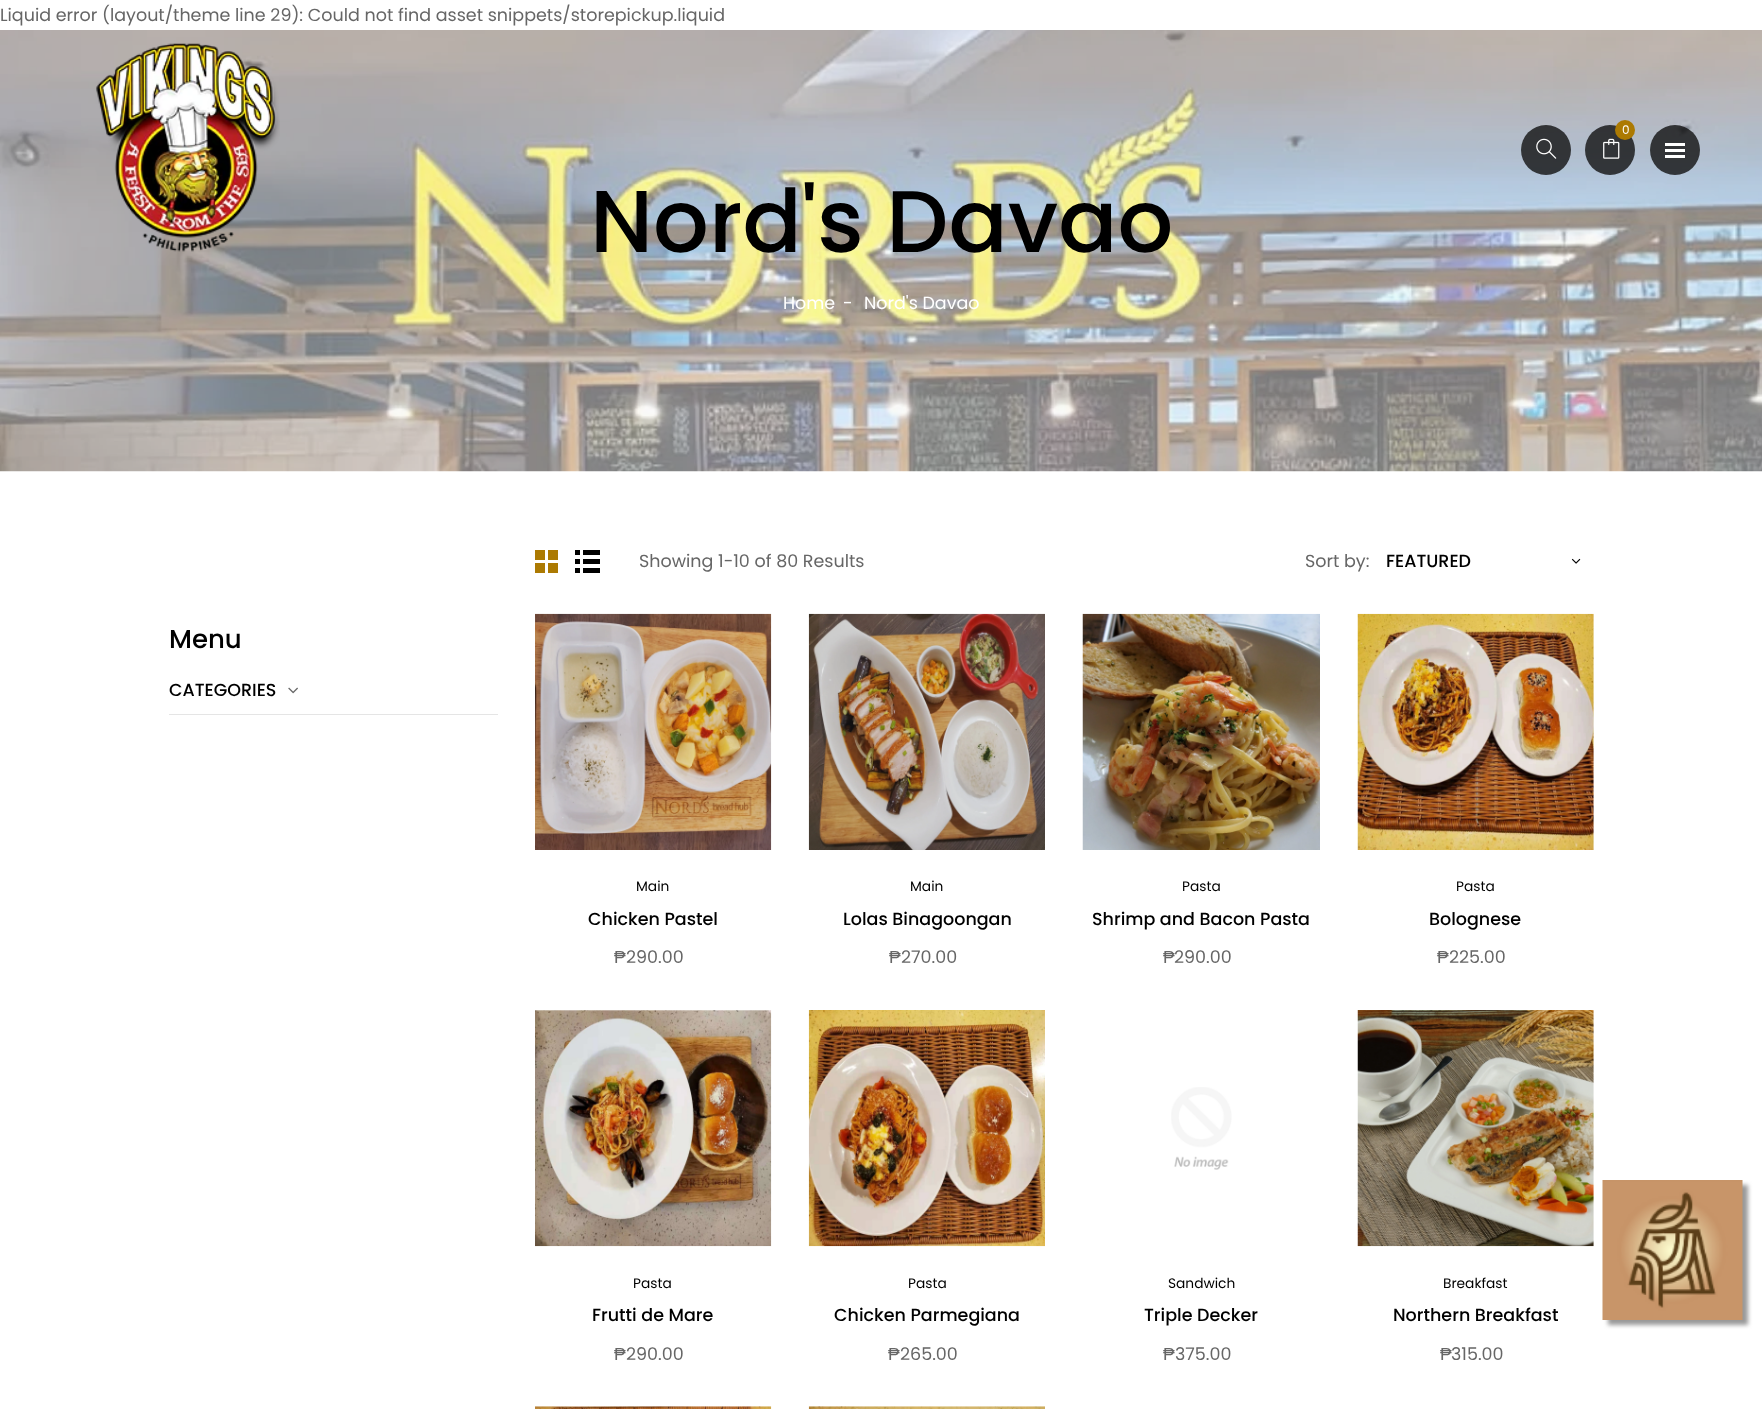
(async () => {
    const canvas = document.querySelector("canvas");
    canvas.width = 1762;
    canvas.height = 1409;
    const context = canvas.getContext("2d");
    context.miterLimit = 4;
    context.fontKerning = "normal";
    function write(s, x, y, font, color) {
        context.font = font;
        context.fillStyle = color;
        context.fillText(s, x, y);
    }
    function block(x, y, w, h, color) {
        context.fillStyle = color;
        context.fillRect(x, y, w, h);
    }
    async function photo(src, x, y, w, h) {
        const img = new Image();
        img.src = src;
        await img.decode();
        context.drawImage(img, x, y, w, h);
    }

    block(0, 0, 1762, 1409, "rgb(255, 255, 255)");
    write("Liquid error (layout/theme line 29): Could not find asset snippets/storepickup.liquid", 0, 21, "17.5px Poppins", "rgb(102, 102, 102)");
    block(0, 30, 1762, 441, "rgb(245, 245, 245)");
    await photo("media/4.png", 0, 30, 1762, 442);
    await photo("media/1.png", 96, 43, 184, 209);
    context.fillStyle = "rgba(18, 18, 18, 0.8)";
    context.beginPath();
    context.arc(1546, 150, 25, 0, Math.PI * 2);
    context.fill();
    await photo("media/2.png", 1536, 138, 21, 21);
    context.beginPath();
    context.arc(1610, 150, 25, 0, Math.PI * 2);
    context.fill();
    await photo("media/3.png", 1603, 138, 17, 21);
    context.fillStyle = "rgb(172, 122, 2)";
    context.beginPath();
    context.arc(1625, 130, 10, 0, Math.PI * 2);
    context.fill();
    write("0", 1622, 134, "12px Poppins", "rgb(255, 255, 255)");
    context.fillStyle = "rgba(18, 18, 18, 0.8)";
    context.beginPath();
    context.arc(1675, 150, 25, 0, Math.PI * 2);
    context.fill();
    block(1665, 143, 20, 3, "rgb(255, 255, 255)");
    block(1665, 149, 20, 3, "rgb(255, 255, 255)");
    block(1665, 155, 20, 3, "rgb(255, 255, 255)");
    write("Nord's Davao", 590, 252, "500 87.5px Poppins", "rgb(0, 0, 0)");
    write("Home", 783, 309, "17.5px Poppins", "rgb(255, 255, 255)");
    write("-", 843, 309, "17.5px Poppins", "rgb(255, 255, 255)");
    write("Nord's Davao", 864, 309, "17.5px Poppins", "rgb(255, 255, 255)");
    write("Menu", 169, 648, "500 26px Poppins", "rgb(0, 0, 0)");
    block(169, 714, 329, 1, "rgb(229, 229, 229)");
    write("CATEGORIES", 169, 696, "500 17.5px Poppins", "rgb(0, 0, 0)");
    await photo("media/5.png", 288, 687, 10, 7);
    block(535, 550, 10, 10, "rgb(172, 122, 2)");
    block(548, 550, 10, 10, "rgb(172, 122, 2)");
    block(548, 563, 10, 10, "rgb(172, 122, 2)");
    block(535, 563, 10, 10, "rgb(172, 122, 2)");
    block(575, 550, 5, 5, "rgb(0, 0, 0)");
    block(575, 559, 5, 5, "rgb(0, 0, 0)");
    block(575, 568, 5, 5, "rgb(0, 0, 0)");
    block(583, 568, 17, 5, "rgb(0, 0, 0)");
    block(583, 550, 17, 5, "rgb(0, 0, 0)");
    block(583, 559, 17, 5, "rgb(0, 0, 0)");
    write("Showing 1-10 of 80 Results", 639, 567, "17.5px Poppins", "rgb(102, 102, 102)");
    write("Sort by:", 1305, 567, "17.5px Poppins", "rgb(102, 102, 102)");
    write("FEATURED", 1386, 567, "500 17.5px Poppins", "rgb(0, 0, 0)");
    await photo("media/6.png", 1571, 558, 10, 6);
    await photo("media/7.png", 535, 613, 237, 237);
    write("Main", 636, 891, "13.75px Poppins", "rgb(0, 0, 0)");
    write("Chicken Pastel", 588, 925, "500 17.5px Poppins", "rgb(0, 0, 0)");
    write("₱", 614, 963, "17.5px Liberation Sans", "rgb(102, 102, 102)");
    write("290.00", 626, 963, "17.5px Poppins", "rgb(102, 102, 102)");
    await photo("media/8.png", 808, 613, 237, 237);
    write("Main", 910, 891, "13.75px Poppins", "rgb(0, 0, 0)");
    write("Lolas Binagoongan", 843, 925, "500 17.5px Poppins", "rgb(0, 0, 0)");
    write("₱", 889, 963, "17.5px Liberation Sans", "rgb(102, 102, 102)");
    write("270.00", 901, 963, "17.5px Poppins", "rgb(102, 102, 102)");
    await photo("media/9.png", 1082, 613, 238, 237);
    write("Pasta", 1182, 891, "13.75px Poppins", "rgb(0, 0, 0)");
    write("Shrimp and Bacon Pasta", 1092, 925, "500 17.5px Poppins", "rgb(0, 0, 0)");
    write("₱", 1163, 963, "17.5px Liberation Sans", "rgb(102, 102, 102)");
    write("290.00", 1174, 963, "17.5px Poppins", "rgb(102, 102, 102)");
    await photo("media/10.png", 1357, 613, 237, 237);
    write("Pasta", 1456, 891, "13.75px Poppins", "rgb(0, 0, 0)");
    write("Bolognese", 1429, 925, "500 17.5px Poppins", "rgb(0, 0, 0)");
    write("₱", 1437, 963, "17.5px Liberation Sans", "rgb(102, 102, 102)");
    write("225.00", 1449, 963, "17.5px Poppins", "rgb(102, 102, 102)");
    await photo("media/11.png", 535, 1010, 237, 237);
    write("Pasta", 633, 1288, "13.75px Poppins", "rgb(0, 0, 0)");
    write("Frutti de Mare", 592, 1321, "500 17.5px Poppins", "rgb(0, 0, 0)");
    write("₱", 614, 1360, "17.5px Liberation Sans", "rgb(102, 102, 102)");
    write("290.00", 626, 1360, "17.5px Poppins", "rgb(102, 102, 102)");
    await photo("media/12.png", 808, 1010, 237, 237);
    write("Pasta", 908, 1288, "13.75px Poppins", "rgb(0, 0, 0)");
    write("Chicken Parmegiana", 834, 1321, "500 17.5px Poppins", "rgb(0, 0, 0)");
    write("₱", 888, 1360, "17.5px Liberation Sans", "rgb(102, 102, 102)");
    write("265.00", 900, 1360, "17.5px Poppins", "rgb(102, 102, 102)");
    await photo("media/13.png", 1171, 1087, 61, 83);
    write("Sandwich", 1168, 1288, "13.75px Poppins", "rgb(0, 0, 0)");
    write("Triple Decker", 1144, 1321, "500 17.5px Poppins", "rgb(0, 0, 0)");
    write("₱", 1163, 1360, "17.5px Liberation Sans", "rgb(102, 102, 102)");
    write("375.00", 1175, 1360, "17.5px Poppins", "rgb(102, 102, 102)");
    await photo("media/14.png", 1357, 1010, 237, 237);
    write("Breakfast", 1443, 1288, "13.75px Poppins", "rgb(0, 0, 0)");
    write("Northern Breakfast", 1393, 1321, "500 17.5px Poppins", "rgb(0, 0, 0)");
    write("₱", 1440, 1360, "17.5px Liberation Sans", "rgb(102, 102, 102)");
    write("315.00", 1451, 1360, "17.5px Poppins", "rgb(102, 102, 102)");
    await photo("media/15.png", 535, 1406, 237, 3);
    await photo("media/16.png", 808, 1406, 237, 3);
    context.fillStyle = "rgb(153, 153, 153)";
    context.filter = "blur(2px)";
    context.beginPath();
    context.rect(1608, 1185, 140, 140);
    context.fill();
    context.filter = "none";
    await photo("media/17.png", 1602, 1180, 141, 140);
})();
